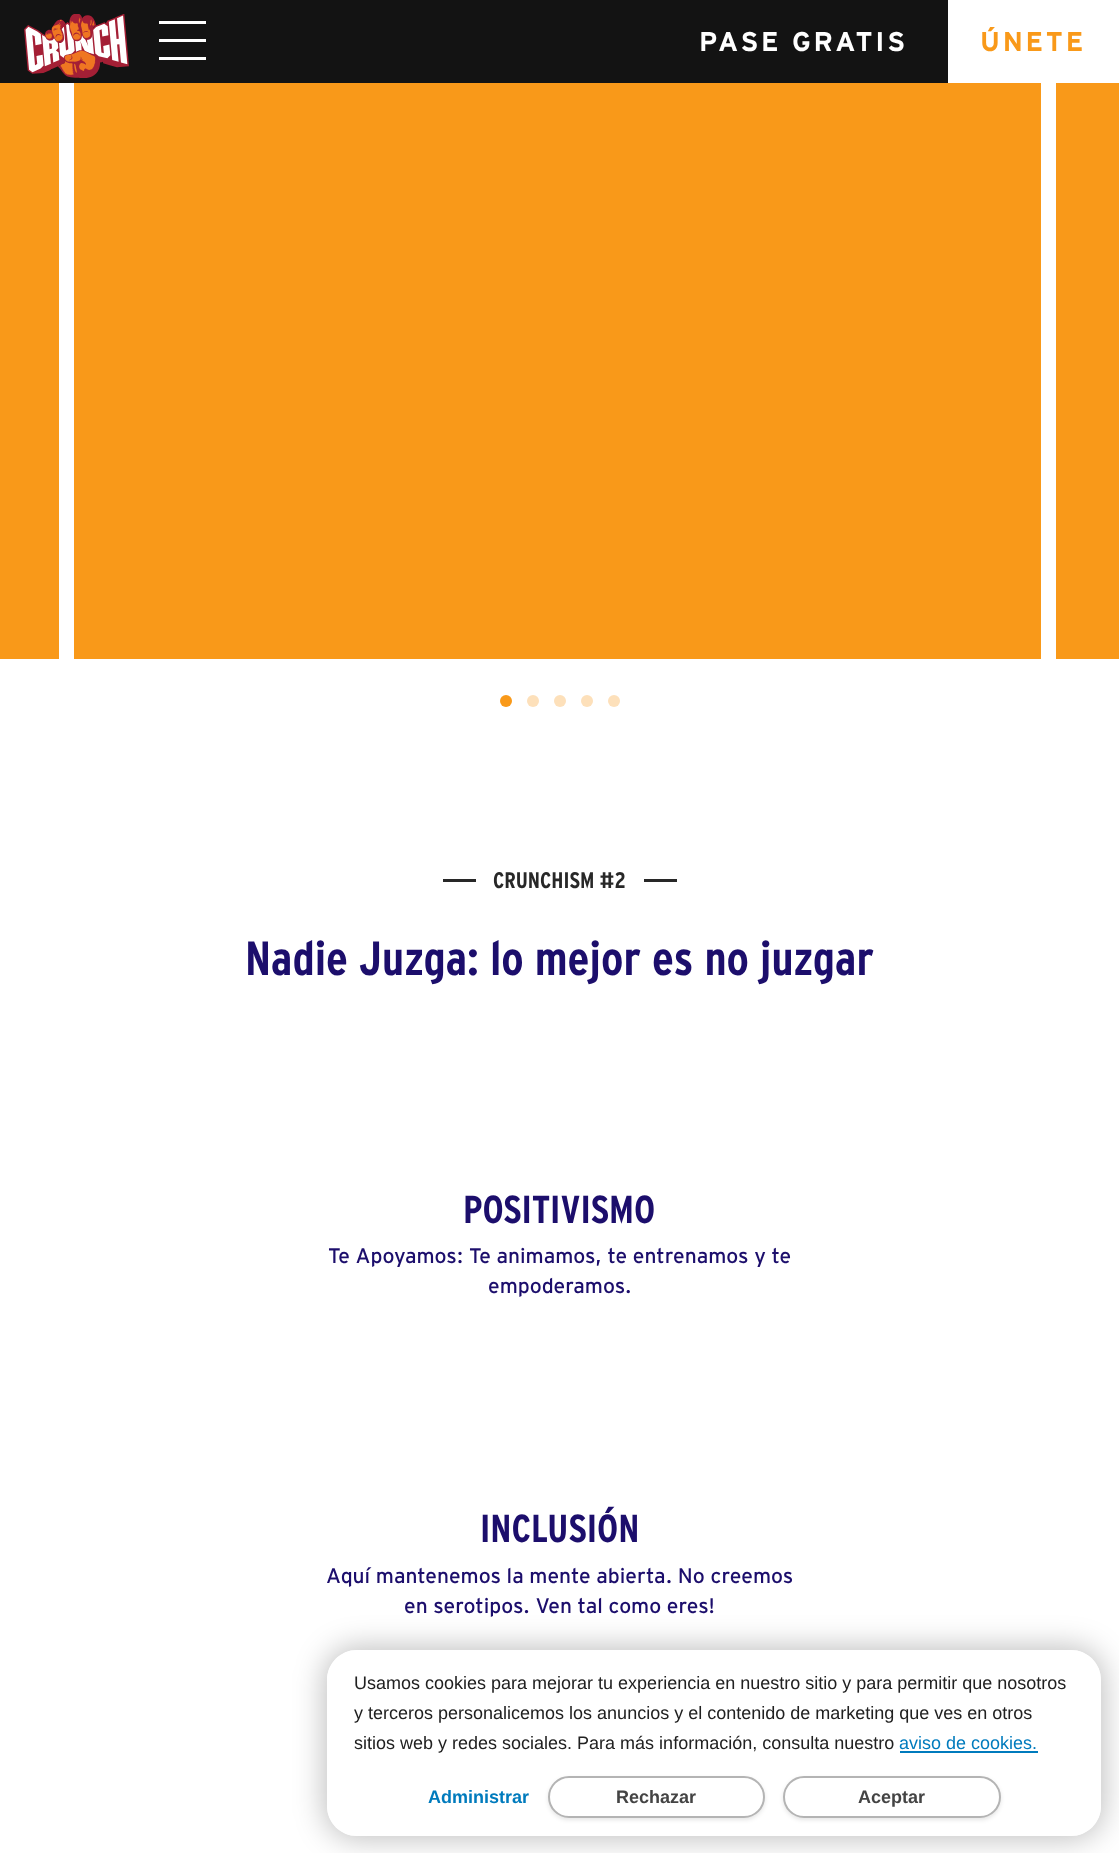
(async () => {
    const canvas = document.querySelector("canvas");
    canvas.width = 1119;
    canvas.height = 1853;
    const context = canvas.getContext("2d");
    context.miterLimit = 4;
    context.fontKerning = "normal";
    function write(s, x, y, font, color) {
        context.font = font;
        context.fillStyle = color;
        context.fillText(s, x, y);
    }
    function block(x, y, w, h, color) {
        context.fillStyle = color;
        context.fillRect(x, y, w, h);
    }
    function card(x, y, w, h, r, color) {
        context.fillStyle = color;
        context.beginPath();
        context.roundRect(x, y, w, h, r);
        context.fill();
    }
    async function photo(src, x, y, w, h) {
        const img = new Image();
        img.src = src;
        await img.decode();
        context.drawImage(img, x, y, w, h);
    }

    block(0, 0, 1119, 1853, "rgb(255, 255, 255)");
    block(0, 0, 948, 83, "rgb(19, 19, 19)");
    await photo("media/1.png", 24, 14, 105, 64);
    block(159, 21, 47, 3, "rgb(255, 255, 255)");
    block(159, 39, 47, 3, "rgb(255, 255, 255)");
    block(159, 57, 47, 3, "rgb(255, 255, 255)");
    context.letterSpacing = "2.75px";
    write("PASE GRATIS", 699, 51, "bold 27px 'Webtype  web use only'", "rgb(255, 255, 255)");
    write("ÚNETE", 980, 51, "bold 27px 'Webtype  web use only'", "rgb(249, 153, 25)");
    block(0, 83, 59, 576, "rgb(249, 153, 25)");
    block(74, 83, 967, 576, "rgb(249, 153, 25)");
    block(1056, 83, 63, 576, "rgb(249, 153, 25)");
    context.beginPath();
    context.arc(506, 701, 6, 0, Math.PI * 2);
    context.fill();
    context.fillStyle = "rgb(253, 224, 186)";
    context.beginPath();
    context.arc(533, 701, 6, 0, Math.PI * 2);
    context.fill();
    context.beginPath();
    context.arc(560, 701, 6, 0, Math.PI * 2);
    context.fill();
    context.beginPath();
    context.arc(587, 701, 6, 0, Math.PI * 2);
    context.fill();
    context.beginPath();
    context.arc(614, 701, 6, 0, Math.PI * 2);
    context.fill();
    block(443, 879, 33, 3, "rgb(40, 40, 40)");
    context.letterSpacing = "0px";
    write("CRUNCHISM #2", 493, 888, "bold 22.5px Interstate", "rgb(40, 40, 40)");
    block(644, 879, 33, 3, "rgb(40, 40, 40)");
    write("Nadie Juzga: lo mejor es no juzgar", 245, 975, "bold 48px Interstate", "rgb(28, 14, 108)");
    write("POSITIVISMO", 463, 1223, "bold 39px Interstate", "rgb(28, 14, 108)");
    write("Te Apoyamos: Te animamos, te entrenamos y te", 328, 1263, "21px 'Webtype  web use only'", "rgb(28, 14, 108)");
    write("empoderamos.", 488, 1293, "21px 'Webtype  web use only'", "rgb(28, 14, 108)");
    write("INCLUSIÓN", 480, 1542, "bold 39px Interstate", "rgb(28, 14, 108)");
    write("Aquí mantenemos la mente abierta. No creemos", 326, 1583, "21px 'Webtype  web use only'", "rgb(28, 14, 108)");
    write("en serotipos. Ven tal como eres!", 404, 1613, "21px 'Webtype  web use only'", "rgb(28, 14, 108)");
    context.save();
    context.beginPath();
    context.moveTo(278, 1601);
    context.lineTo(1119, 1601);
    context.lineTo(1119, 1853);
    context.lineTo(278, 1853);
    context.closePath();
    context.moveTo(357, 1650);
    context.lineTo(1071, 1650);
    context.bezierCurveTo(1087.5, 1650, 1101, 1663.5, 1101, 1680);
    context.lineTo(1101, 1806);
    context.bezierCurveTo(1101, 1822.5, 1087.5, 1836, 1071, 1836);
    context.lineTo(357, 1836);
    context.bezierCurveTo(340.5, 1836, 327, 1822.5, 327, 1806);
    context.lineTo(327, 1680);
    context.bezierCurveTo(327, 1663.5, 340.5, 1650, 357, 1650);
    context.closePath();
    context.clip("evenodd");
    context.fillStyle = "rgba(0, 0, 0, 0.25)";
    context.filter = "blur(15px)";
    context.beginPath();
    context.roundRect(324, 1647, 780, 192, 33);
    context.fill();
    context.filter = "none";
    context.restore();
    card(327, 1650, 774, 186, 30, "rgba(255, 255, 255, 0.85)");
    write("Usamos cookies para mejorar tu experiencia en nuestro sitio y para permitir que nosotros", 354, 1689, "18px Liberation Sans", "rgb(33, 33, 33)");
    write("y terceros personalicemos los anuncios y el contenido de marketing que ves en otros", 354, 1719, "18px Liberation Sans", "rgb(33, 33, 33)");
    write("sitios web y redes sociales. Para más información, consulta nuestro", 354, 1749, "18px Liberation Sans", "rgb(33, 33, 33)");
    write("aviso de cookies.", 899, 1749, "18px Liberation Sans", "rgb(0, 123, 189)");
    block(900, 1751, 138, 2, "rgb(0, 123, 189)");
    write("Administrar", 428, 1803, "bold 18px Liberation Sans", "rgb(0, 123, 189)");
    context.fillStyle = "rgba(0, 0, 0, 0.1)";
    context.filter = "blur(2px)";
    context.beginPath();
    context.roundRect(548, 1778, 217, 42, 21);
    context.fill();
    context.filter = "none";
    context.fillStyle = "rgb(255, 255, 255)";
    context.beginPath();
    context.roundRect(549, 1777, 215, 40, 20);
    context.fill();
    context.strokeStyle = "rgb(180, 180, 180)";
    context.lineWidth = 2;
    context.stroke();
    write("Rechazar", 616, 1803, "bold 18px Liberation Sans", "rgb(68, 68, 68)");
    context.fillStyle = "rgba(0, 0, 0, 0.1)";
    context.filter = "blur(2px)";
    context.beginPath();
    context.roundRect(783, 1778, 218, 42, 21);
    context.fill();
    context.filter = "none";
    context.fillStyle = "rgb(255, 255, 255)";
    context.beginPath();
    context.roundRect(784, 1777, 216, 40, 20);
    context.fill();
    context.stroke();
    write("Aceptar", 858, 1803, "bold 18px Liberation Sans", "rgb(68, 68, 68)");
})();
